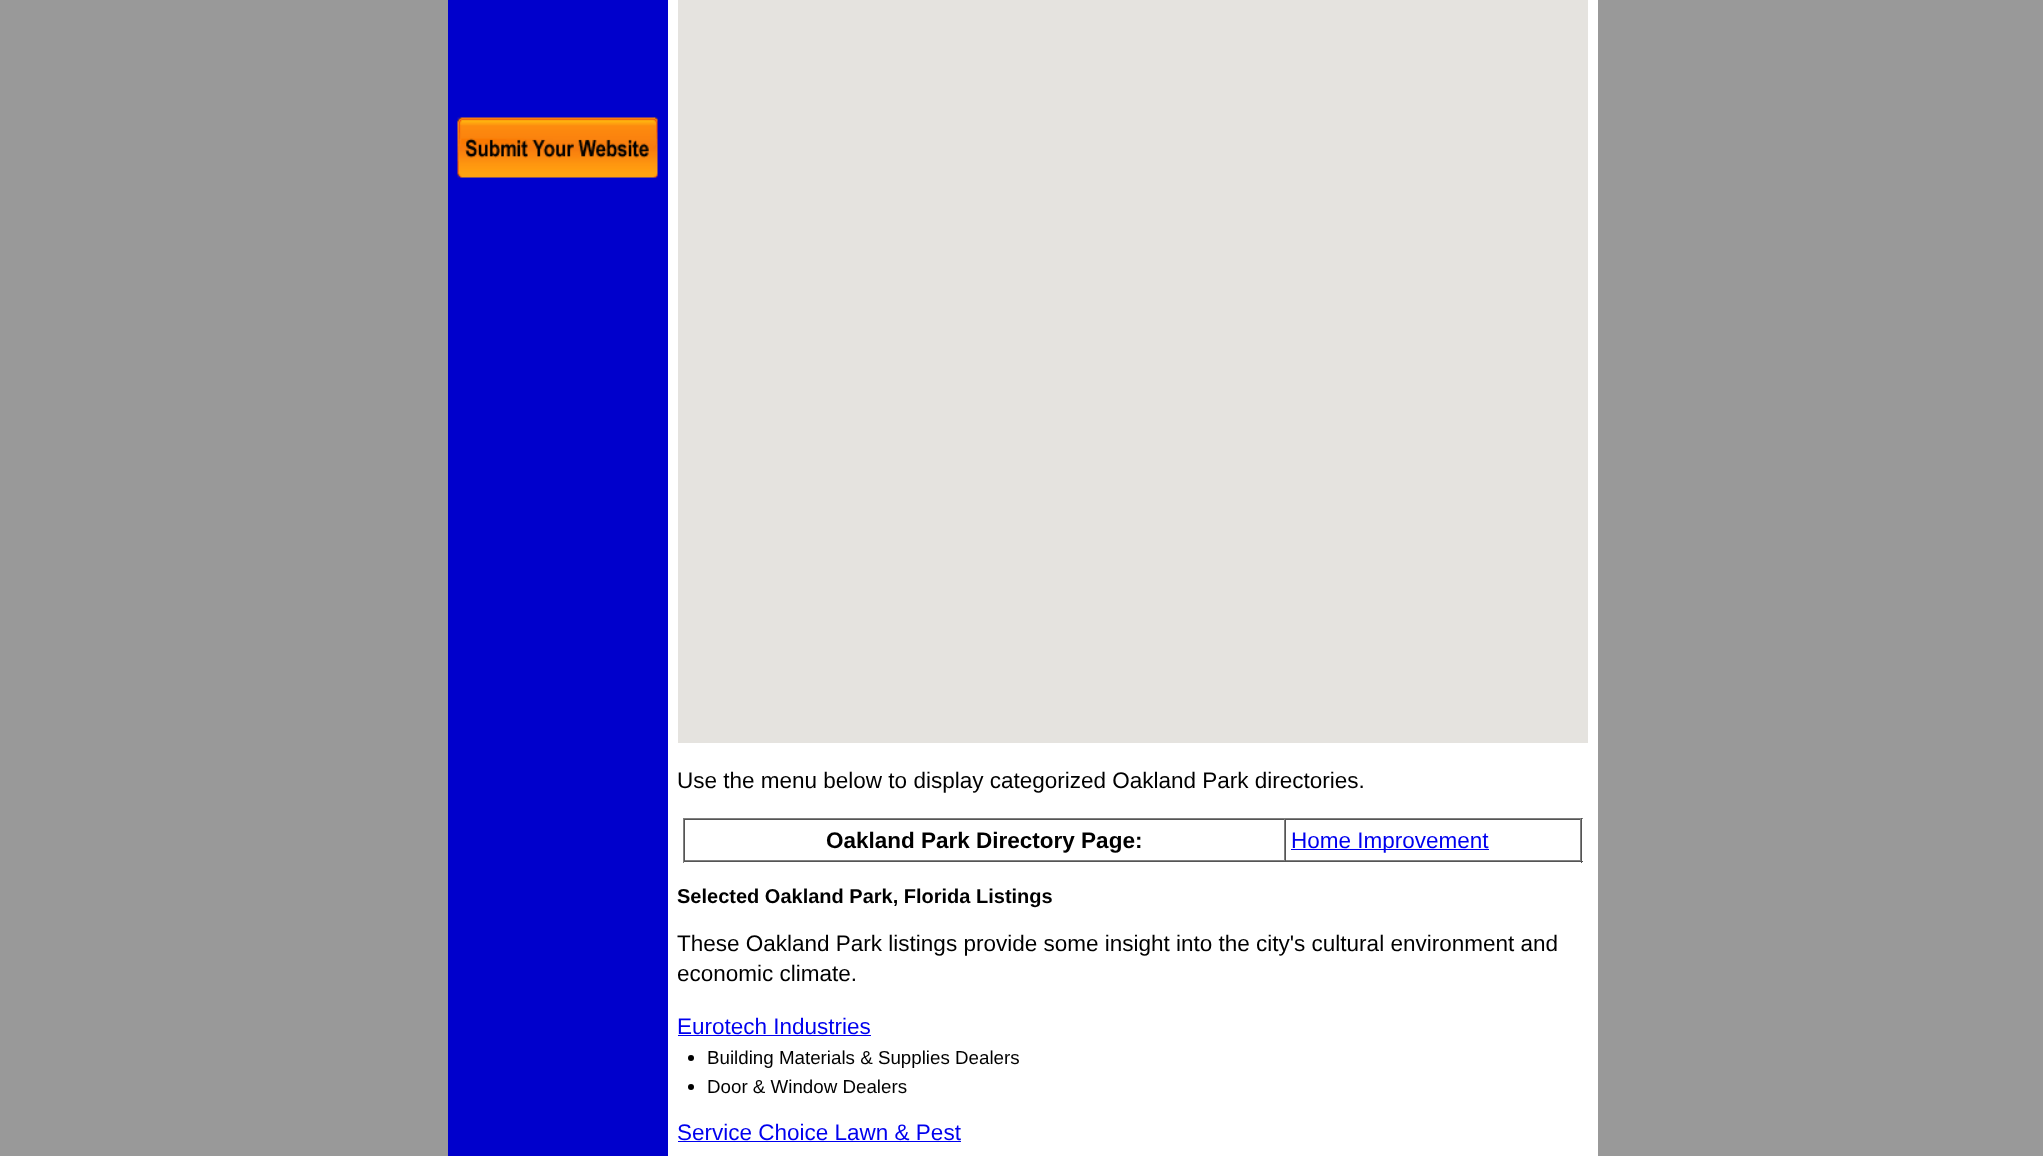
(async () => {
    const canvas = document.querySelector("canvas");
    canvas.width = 2043;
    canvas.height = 1156;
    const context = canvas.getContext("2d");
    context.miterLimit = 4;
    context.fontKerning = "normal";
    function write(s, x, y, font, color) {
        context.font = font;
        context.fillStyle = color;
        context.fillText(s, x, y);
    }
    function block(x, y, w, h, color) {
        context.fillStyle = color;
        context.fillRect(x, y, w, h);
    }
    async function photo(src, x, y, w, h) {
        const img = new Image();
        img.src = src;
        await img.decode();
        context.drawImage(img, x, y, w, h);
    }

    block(0, 0, 2043, 1156, "rgb(153, 153, 153)");
    block(668, 0, 930, 1156, "rgb(255, 255, 255)");
    block(448, 0, 220, 1156, "rgb(0, 0, 204)");
    await photo("media/1.png", 457, 117, 201, 61);
    block(678, 0, 910, 743, "rgb(229, 227, 223)");
    write("Use the menu below to display categorized Oakland Park directories.", 677, 788, "22.5px Liberation Sans", "rgb(0, 0, 0)");
    block(683, 818, 900, 1, "rgb(128, 128, 128)");
    block(1581, 818, 1, 45, "rgb(85, 85, 85)");
    block(683, 861, 900, 1, "rgb(85, 85, 85)");
    block(683, 818, 1, 45, "rgb(128, 128, 128)");
    block(684, 819, 897, 1, "rgb(85, 85, 85)");
    block(1284, 819, 1, 42, "rgb(128, 128, 128)");
    block(684, 860, 601, 1, "rgb(128, 128, 128)");
    block(684, 819, 1, 42, "rgb(85, 85, 85)");
    write("Oakland Park Directory Page:", 826, 848, "bold 22.5px Liberation Sans", "rgb(0, 0, 0)");
    block(1580, 819, 1, 42, "rgb(128, 128, 128)");
    block(1285, 860, 296, 1, "rgb(128, 128, 128)");
    block(1285, 819, 1, 42, "rgb(85, 85, 85)");
    block(1291, 849, 198, 1, "rgb(0, 0, 238)");
    write("Home Improvement", 1291, 848, "22.5px Liberation Sans", "rgb(0, 0, 238)");
    write("Selected Oakland Park, Florida Listings", 677, 903, "bold 20px Liberation Sans", "rgb(0, 0, 0)");
    write("These Oakland Park listings provide some insight into the city's cultural environment and", 677, 951, "22.5px Liberation Sans", "rgb(0, 0, 0)");
    write("economic climate.", 677, 981, "22.5px Liberation Sans", "rgb(0, 0, 0)");
    write("Eurotech Industries", 677, 1034, "22.5px Liberation Sans", "rgb(0, 0, 238)");
    block(678, 1035, 193, 1, "rgb(0, 0, 238)");
    context.fillStyle = "rgb(0, 0, 0)";
    context.beginPath();
    context.arc(691, 1058, 3, 0, Math.PI * 2);
    context.fill();
    write("Building Materials & Supplies Dealers", 707, 1064, "18.75px Liberation Sans", "rgb(0, 0, 0)");
    context.beginPath();
    context.arc(691, 1087, 3, 0, Math.PI * 2);
    context.fill();
    write("Door & Window Dealers", 707, 1093, "18.75px Liberation Sans", "rgb(0, 0, 0)");
    write("Service Choice Lawn & Pest", 677, 1140, "22.5px Liberation Sans", "rgb(0, 0, 238)");
    block(678, 1141, 283, 1, "rgb(0, 0, 238)");
})();
